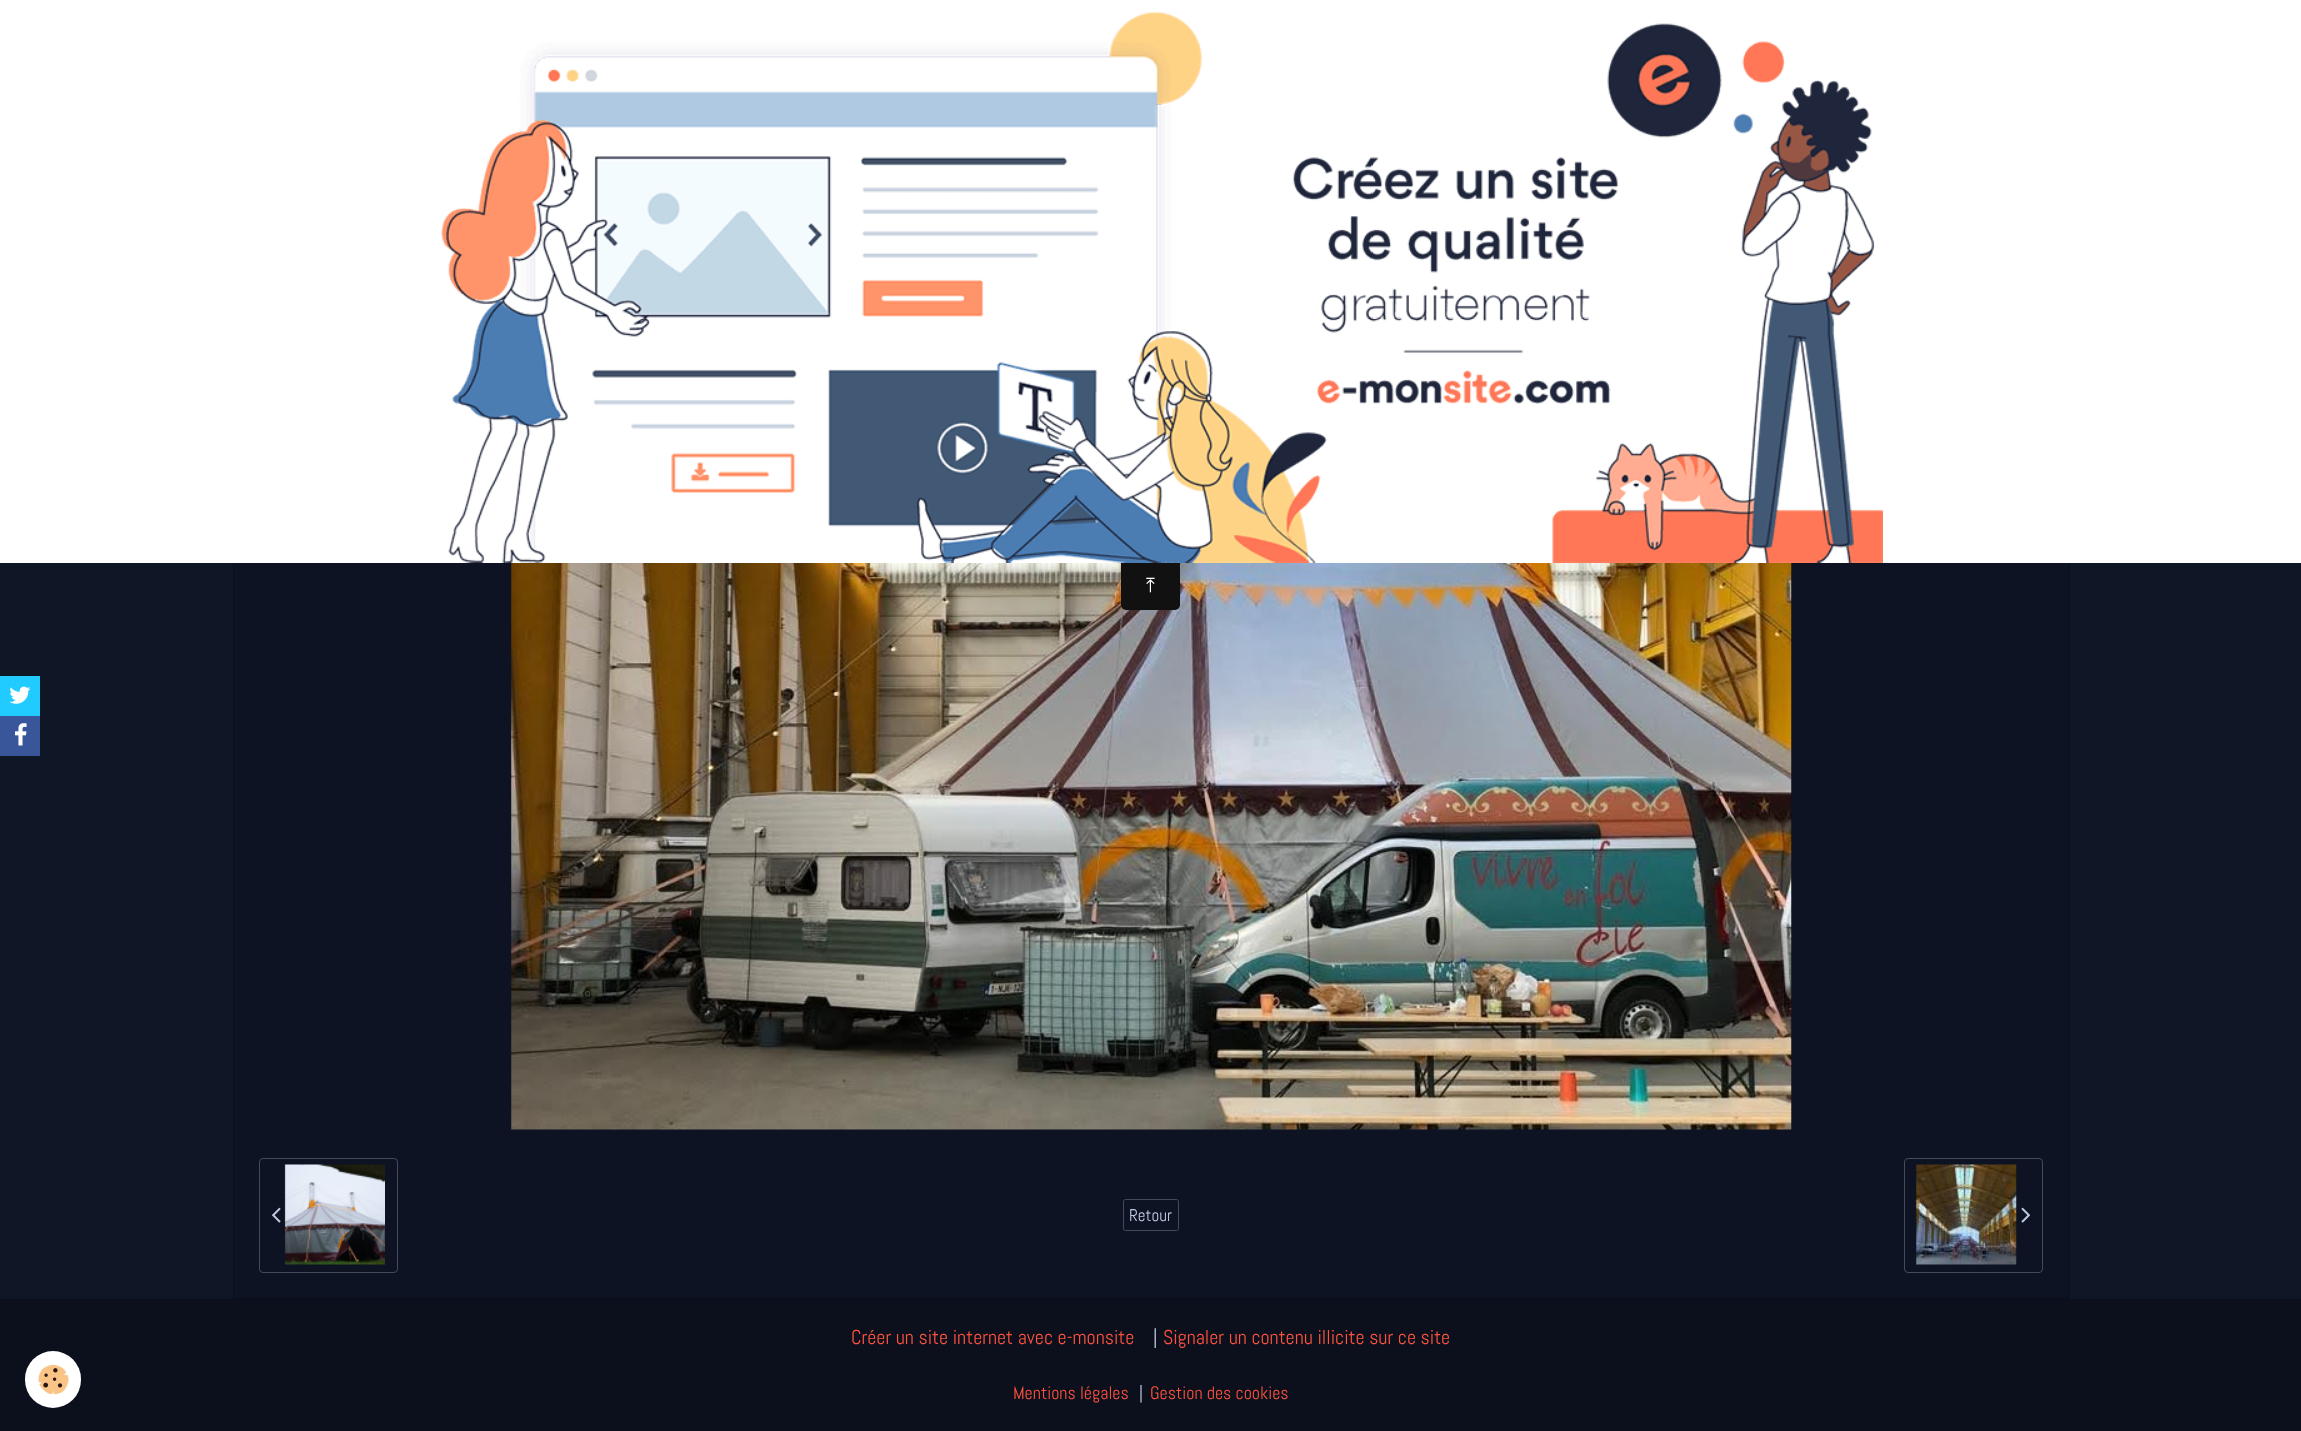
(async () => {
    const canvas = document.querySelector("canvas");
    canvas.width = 2301;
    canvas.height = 1431;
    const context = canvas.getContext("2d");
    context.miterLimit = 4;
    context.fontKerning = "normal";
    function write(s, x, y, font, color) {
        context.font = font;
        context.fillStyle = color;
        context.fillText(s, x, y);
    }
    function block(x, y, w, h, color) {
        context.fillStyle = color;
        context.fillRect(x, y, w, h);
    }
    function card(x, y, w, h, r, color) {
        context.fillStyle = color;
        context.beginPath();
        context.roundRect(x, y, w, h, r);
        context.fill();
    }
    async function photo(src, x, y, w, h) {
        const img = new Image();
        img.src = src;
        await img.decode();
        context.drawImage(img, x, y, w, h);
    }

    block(0, 0, 2301, 1431, "rgb(15, 22, 38)");
    block(234, 563, 1835, 735, "rgb(13, 19, 34)");
    context.strokeStyle = "rgb(10, 14, 25)";
    context.strokeRect(233.5, 63.5, 1836, 1235);
    block(0, 0, 2301, 563, "rgb(255, 255, 255)");
    await photo("media/1.png", 441, 12, 1442, 551);
    await photo("media/4.png", 511, 563, 1281, 567);
    context.fillStyle = "rgb(17, 17, 17)";
    context.beginPath();
    context.roundRect(1121, 563, 59, 47, [0, 0, 5, 5]);
    context.fill();
    write("⤒", 1146, 592, "20px FreeSerif", "rgb(255, 255, 255)");
    block(0, 676, 40, 40, "rgb(34, 203, 255)");
    await photo("media/2.png", 9, 686, 22, 18);
    block(0, 716, 40, 40, "rgb(56, 86, 153)");
    await photo("media/3.png", 15, 723, 12, 23);
    await photo("media/5.png", 272, 1207, 9, 16);
    await photo("media/6.png", 284, 1164, 101, 101);
    context.beginPath();
    context.roundRect(259.5, 1158.5, 138, 114, 3.5);
    context.strokeStyle = "rgb(66, 74, 92)";
    context.stroke();
    context.beginPath();
    context.roundRect(1123.5, 1199.5, 55, 31, 2);
    context.stroke();
    write("Retour", 1129, 1221, "17px Abel", "rgb(190, 201, 226)");
    await photo("media/7.png", 1916, 1164, 101, 101);
    await photo("media/8.png", 2021, 1207, 10, 16);
    context.beginPath();
    context.roundRect(1904.5, 1158.5, 138, 114, 3.5);
    context.stroke();
    block(0, 1299, 2301, 132, "rgb(12, 16, 29)");
    card(25, 1351, 56, 57, 28, "rgb(255, 255, 255)");
    await photo("media/9.png", 38, 1364, 31, 31);
    write("Créer un site internet avec e-monsite", 851, 1344, "20px Abel", "rgb(255, 83, 61)");
    write("|", 1153, 1344, "20px Abel", "rgb(190, 201, 226)");
    write("Signaler un contenu illicite sur ce site", 1163, 1344, "20px Abel", "rgb(255, 83, 61)");
    write("Mentions légales", 1013, 1399, "18px Abel", "rgb(255, 83, 61)");
    write("|", 1139, 1399, "18px Abel", "rgb(190, 201, 226)");
    write("Gestion des cookies", 1150, 1399, "18px Abel", "rgb(255, 83, 61)");
})();
